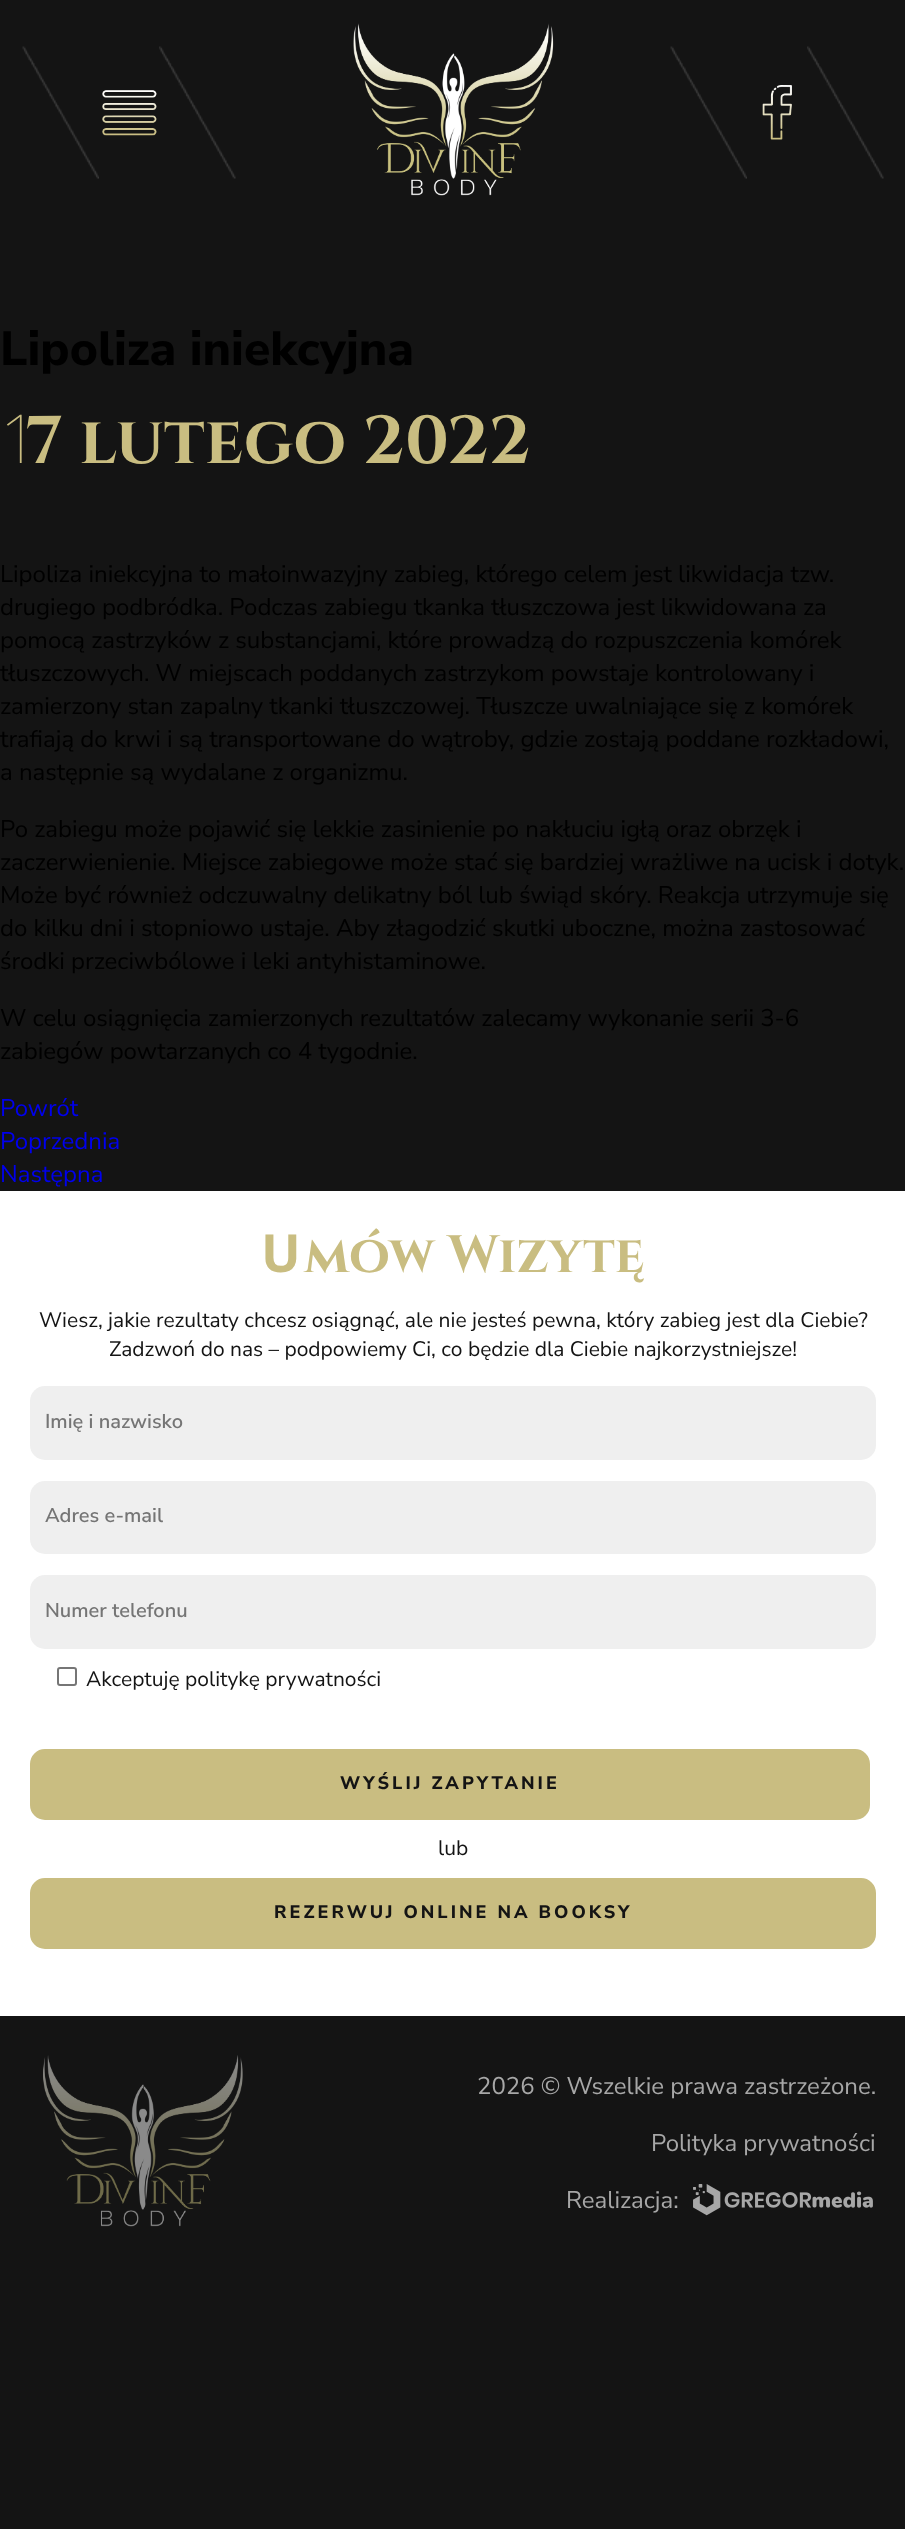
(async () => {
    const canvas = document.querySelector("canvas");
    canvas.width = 905;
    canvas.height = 2529;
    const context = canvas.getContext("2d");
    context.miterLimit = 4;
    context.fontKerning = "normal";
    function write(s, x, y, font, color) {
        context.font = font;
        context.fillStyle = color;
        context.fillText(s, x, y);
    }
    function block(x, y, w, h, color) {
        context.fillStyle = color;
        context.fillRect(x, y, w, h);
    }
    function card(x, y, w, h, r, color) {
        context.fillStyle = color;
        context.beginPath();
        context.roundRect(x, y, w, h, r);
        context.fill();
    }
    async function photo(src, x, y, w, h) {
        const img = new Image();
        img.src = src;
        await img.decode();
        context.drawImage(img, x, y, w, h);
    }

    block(0, 0, 905, 2529, "rgb(20, 20, 20)");
    await photo("media/1.png", 22, 46, 77, 133);
    await photo("media/2.png", 102, 90, 55, 46);
    await photo("media/3.png", 159, 46, 77, 133);
    await photo("media/4.png", 353, 23, 201, 173);
    await photo("media/5.png", 670, 46, 77, 133);
    await photo("media/6.png", 762, 85, 30, 55);
    await photo("media/3.png", 807, 46, 77, 133);
    write("Lipoliza iniekcyjna", 0, 365, "800 48px Nunito Sans", "rgb(0, 0, 0)");
    write("1", 0, 463, "100 67.5px Noto Sans", "rgb(201, 189, 129)");
    write("7 lutego 2022", 26, 463, "bold 67.5px Cinzel", "rgb(201, 189, 129)");
    write("Lipoliza iniekcyjna to małoinwazyjny zabieg, którego celem jest likwidacja tzw.", 0, 582, "24px Nunito Sans", "rgb(0, 0, 0)");
    write("drugiego podbródka. Podczas zabiegu tkanka tłuszczowa jest likwidowana za", 0, 615, "24px Nunito Sans", "rgb(0, 0, 0)");
    write("pomocą zastrzyków z substancjami, które prowadzą do rozpuszczenia komórek", 0, 648, "24px Nunito Sans", "rgb(0, 0, 0)");
    write("tłuszczowych. W miejscach poddanych zastrzykom powstaje kontrolowany i", 0, 681, "24px Nunito Sans", "rgb(0, 0, 0)");
    write("zamierzony stan zapalny tkanki tłuszczowej. Tłuszcze uwalniające się z komórek", 0, 714, "24px Nunito Sans", "rgb(0, 0, 0)");
    write("trafiają do krwi i są transportowane do wątroby, gdzie zostają poddane rozkładowi,", 0, 747, "24px Nunito Sans", "rgb(0, 0, 0)");
    write("a następnie są wydalane z organizmu.", 0, 780, "24px Nunito Sans", "rgb(0, 0, 0)");
    write("Po zabiegu może pojawić się lekkie zasinienie po nakłuciu igłą oraz obrzęk i", 0, 837, "24px Nunito Sans", "rgb(0, 0, 0)");
    write("zaczerwienienie. Miejsce zabiegowe może stać się bardziej wrażliwe na ucisk i dotyk.", 0, 870, "24px Nunito Sans", "rgb(0, 0, 0)");
    write("Może być również odczuwalny delikatny ból lub świąd skóry. Reakcja utrzymuje się", 0, 903, "24px Nunito Sans", "rgb(0, 0, 0)");
    write("do kilku dni i stopniowo ustaje. Aby złagodzić skutki uboczne, można zastosować", 0, 936, "24px Nunito Sans", "rgb(0, 0, 0)");
    write("środki przeciwbólowe i leki antyhistaminowe.", 0, 969, "24px Nunito Sans", "rgb(0, 0, 0)");
    write("W celu osiągnięcia zamierzonych rezultatów zalecamy wykonanie serii 3-6", 0, 1026, "24px Nunito Sans", "rgb(0, 0, 0)");
    write("zabiegów powtarzanych co 4 tygodnie.", 0, 1059, "24px Nunito Sans", "rgb(0, 0, 0)");
    write("Powrót", 0, 1116, "24px Nunito Sans", "rgb(0, 0, 238)");
    write("Poprzednia", 0, 1149, "24px Nunito Sans", "rgb(0, 0, 238)");
    write("Następna", 0, 1182, "24px Nunito Sans", "rgb(0, 0, 238)");
    block(0, 1191, 905, 825, "rgb(255, 255, 255)");
    write("U", 261, 1272, "bold 52.5px Noto Sans", "rgb(201, 189, 129)");
    write("mów Wizytę", 304, 1272, "bold 52.5px Cinzel", "rgb(201, 189, 129)");
    write("Wiesz, jakie rezultaty chcesz osiągnąć, ale nie jesteś pewna, który zabieg jest dla Ciebie?", 39, 1327, "21px Nunito Sans", "rgb(20, 20, 20)");
    write("Zadzwoń do nas – podpowiemy Ci, co będzie dla Ciebie najkorzystniejsze!", 109, 1356, "21px Nunito Sans", "rgb(20, 20, 20)");
    card(30, 1386, 846, 74, 15, "rgb(239, 239, 239)");
    write("Imię i nazwisko", 45, 1428, "600 20px Nunito Sans", "rgb(117, 117, 117)");
    card(30, 1481, 846, 73, 15, "rgb(239, 239, 239)");
    write("Adres e-mail", 45, 1522, "600 20px Nunito Sans", "rgb(117, 117, 117)");
    card(30, 1575, 846, 74, 15, "rgb(239, 239, 239)");
    write("Numer telefonu", 45, 1617, "600 20px Nunito Sans", "rgb(117, 117, 117)");
    context.beginPath();
    context.roundRect(58, 1668, 18, 17, 2);
    context.strokeStyle = "rgb(118, 118, 118)";
    context.lineWidth = 2;
    context.stroke();
    write("Akceptuję politykę prywatności", 86, 1686, "21px Nunito Sans", "rgb(20, 20, 20)");
    context.fillStyle = "rgb(201, 189, 129)";
    context.beginPath();
    context.roundRect(31.5, 1750.5, 837, 68, 13.5);
    context.fill();
    context.strokeStyle = "rgb(201, 189, 129)";
    context.lineWidth = 3;
    context.stroke();
    context.letterSpacing = "3px";
    write("WYŚLIJ ZAPYTANIE", 340, 1789, "800 18px Nunito Sans", "rgb(20, 20, 20)");
    context.letterSpacing = "0px";
    write("lub", 438, 1855, "21px Nunito Sans", "rgb(20, 20, 20)");
    context.fillStyle = "rgb(201, 189, 129)";
    context.beginPath();
    context.roundRect(31.5, 1879.5, 843, 68, 13.5);
    context.fill();
    context.stroke();
    context.letterSpacing = "3px";
    write("REZERWUJ ONLINE NA BOOKSY", 274, 1918, "800 18px Nunito Sans", "rgb(20, 20, 20)");
    await photo("media/7.png", 43, 2055, 200, 172);
    context.letterSpacing = "0px";
    write("2026 © Wszelkie prawa zastrzeżone.", 477, 2094, "24px Nunito Sans", "rgb(167, 167, 167)");
    write("Polityka prywatności", 651, 2151, "24px Nunito Sans", "rgb(167, 167, 167)");
    write("Realizacja:", 566, 2208, "24px Nunito Sans", "rgb(167, 167, 167)");
    await photo("media/8.png", 693, 2184, 180, 32);
})();
